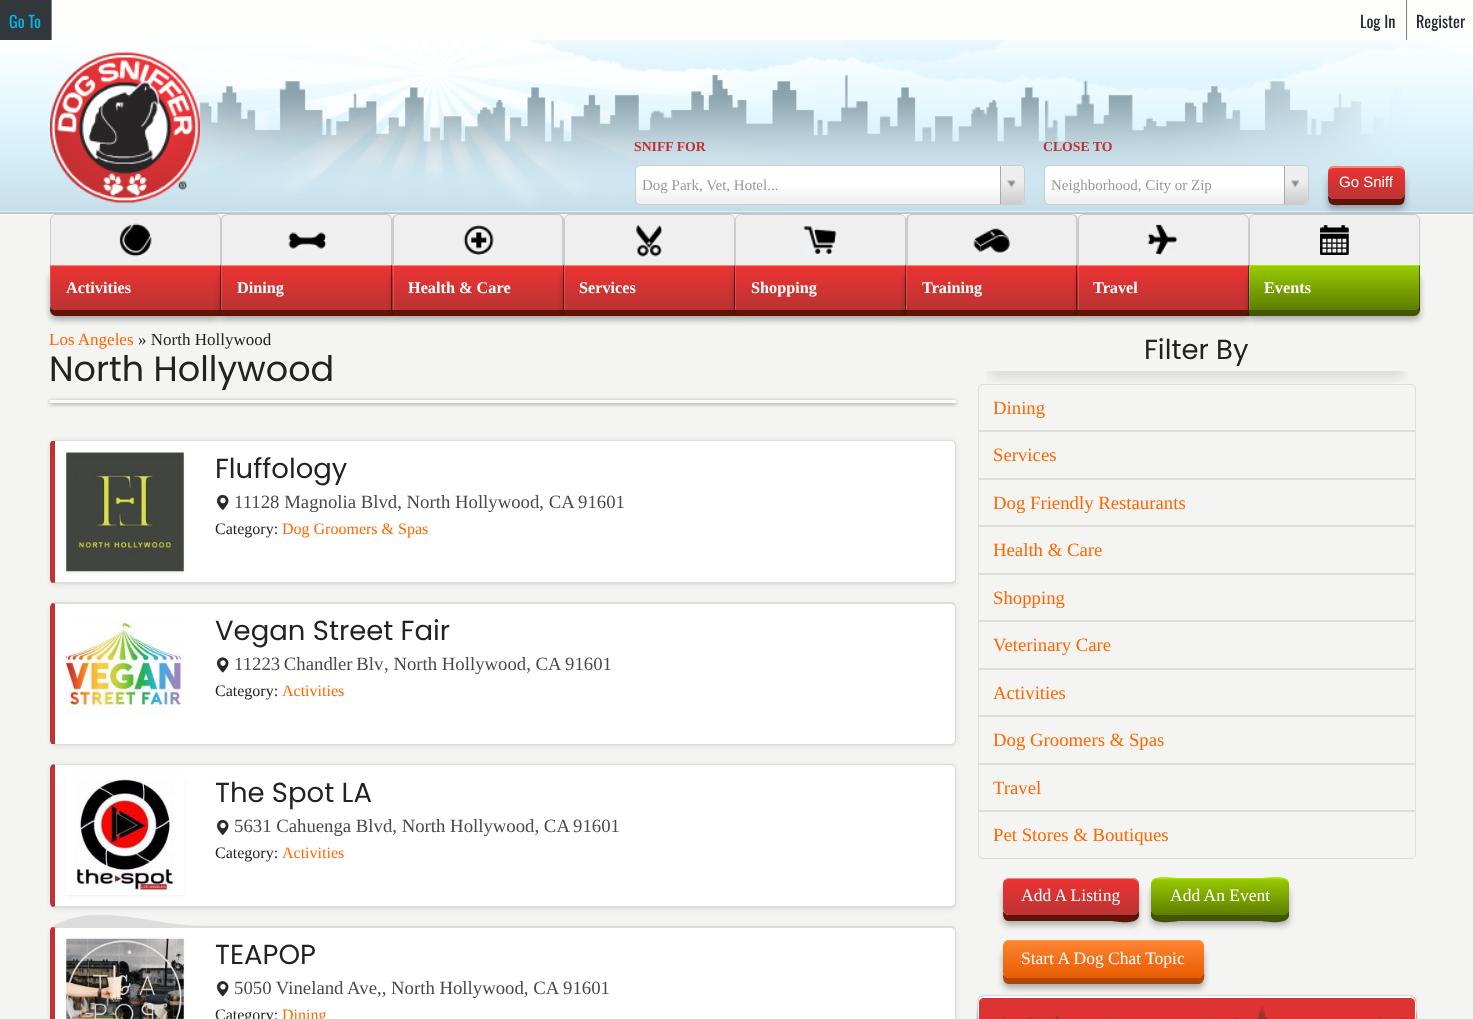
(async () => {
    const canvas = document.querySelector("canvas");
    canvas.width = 1473;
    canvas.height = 1019;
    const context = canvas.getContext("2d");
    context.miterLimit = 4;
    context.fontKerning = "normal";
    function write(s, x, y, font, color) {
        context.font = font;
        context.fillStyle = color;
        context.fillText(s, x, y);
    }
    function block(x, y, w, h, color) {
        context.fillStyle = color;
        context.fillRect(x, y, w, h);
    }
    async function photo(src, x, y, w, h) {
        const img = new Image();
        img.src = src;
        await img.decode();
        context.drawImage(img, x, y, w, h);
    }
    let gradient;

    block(0, 0, 1473, 1019, "rgb(244, 244, 242)");
    block(52, 0, 1421, 40, "rgb(253, 253, 252)");
    block(51, 0, 1, 40, "rgb(127, 127, 126)");
    block(0, 0, 51, 40, "rgb(50, 55, 60)");
    write("Go To", 9, 28, "16.25px Oswald", "rgb(0, 185, 235)");
    block(1406, 0, 1, 40, "rgb(127, 127, 126)");
    write("Log In", 1360, 28, "16.25px Oswald", "rgb(35, 40, 45)");
    write("Register", 1416, 28, "16.25px Oswald", "rgb(35, 40, 45)");
    block(0, 214, 1473, 1, "rgb(255, 255, 255)");
    await photo("media/1.png", 0, 40, 1473, 174);
    await photo("media/2.png", 50, 52, 150, 151);
    write("SNIFF FOR", 634, 151, "bold 13.75px Liberation Serif", "rgb(187, 51, 51)");
    gradient = context.createLinearGradient(636, 204, 636, 166);
    gradient.addColorStop(0, "rgb(238, 238, 238)");
    gradient.addColorStop(0.5, "rgb(255, 255, 255)");
    context.fillStyle = gradient;
    context.beginPath();
    context.roundRect(636, 166, 388, 38, 4);
    context.fill();
    context.beginPath();
    context.roundRect(635.5, 165.5, 389, 39, 4.5);
    context.strokeStyle = "rgb(204, 204, 204)";
    context.stroke();
    write("Dog Park, Vet, Hotel...", 642, 190, "15px Liberation Serif", "rgb(153, 153, 153)");
    context.save();
    context.beginPath();
    context.roundRect(636, 166, 388, 38, 4);
    context.clip();
    gradient = context.createLinearGradient(1001, 204, 1001, 166);
    gradient.addColorStop(0, "rgb(204, 204, 204)");
    gradient.addColorStop(0.6, "rgb(238, 238, 238)");
    context.fillStyle = gradient;
    context.beginPath();
    context.roundRect(1000, 166, 24, 38, [0, 5, 5, 0]);
    context.fill();
    context.restore();
    block(1000, 166, 1, 38, "rgb(170, 170, 170)");
    await photo("media/3.png", 1007, 180, 9, 8);
    write("CLOSE TO", 1043, 151, "bold 13.75px Liberation Serif", "rgb(187, 51, 51)");
    gradient = context.createLinearGradient(1045, 204, 1045, 166);
    gradient.addColorStop(0, "rgb(238, 238, 238)");
    gradient.addColorStop(0.5, "rgb(255, 255, 255)");
    context.fillStyle = gradient;
    context.beginPath();
    context.roundRect(1045, 166, 263, 38, 4);
    context.fill();
    context.beginPath();
    context.roundRect(1044.5, 165.5, 264, 39, 4.5);
    context.stroke();
    write("Neighborhood, City or Zip", 1051, 190, "15px Liberation Serif", "rgb(153, 153, 153)");
    context.save();
    context.beginPath();
    context.roundRect(1045, 166, 263, 38, 4);
    context.clip();
    gradient = context.createLinearGradient(1285, 204, 1285, 166);
    gradient.addColorStop(0, "rgb(204, 204, 204)");
    gradient.addColorStop(0.6, "rgb(238, 238, 238)");
    context.fillStyle = gradient;
    context.beginPath();
    context.roundRect(1284, 166, 24, 38, [0, 5, 5, 0]);
    context.fill();
    context.restore();
    block(1284, 166, 1, 38, "rgb(170, 170, 170)");
    await photo("media/4.png", 1291, 180, 9, 8);
    context.fillStyle = "rgba(0, 0, 0, 0.3)";
    context.filter = "blur(3px)";
    context.beginPath();
    context.roundRect(1328, 176, 77, 33, 6);
    context.fill();
    context.filter = "none";
    context.fillStyle = "rgb(95, 20, 7)";
    context.beginPath();
    context.moveTo(1328, 195);
    context.bezierCurveTo(1328, 207, 1333, 205, 1345, 205);
    context.lineTo(1388, 205);
    context.bezierCurveTo(1403, 205, 1405, 207, 1405, 192);
    context.bezierCurveTo(1405, 196, 1402, 199, 1399, 199);
    context.lineTo(1334, 199);
    context.bezierCurveTo(1331, 199, 1329, 197, 1328, 195);
    context.closePath();
    context.fill();
    gradient = context.createLinearGradient(1366, 166, 1366, 199);
    gradient.addColorStop(0, "rgb(238, 51, 51)");
    gradient.addColorStop(1, "rgb(187, 51, 51)");
    context.fillStyle = gradient;
    context.beginPath();
    context.roundRect(1328, 166, 77, 33, 6);
    context.fill();
    context.fillStyle = "rgb(239, 141, 119)";
    context.beginPath();
    context.moveTo(1334, 168);
    context.lineTo(1399, 168);
    context.bezierCurveTo(1402, 168, 1405, 170, 1405, 174);
    context.bezierCurveTo(1405, 163, 1397, 166, 1388, 166);
    context.lineTo(1345, 166);
    context.bezierCurveTo(1336, 166, 1328, 163, 1328, 174);
    context.bezierCurveTo(1328, 170, 1330, 168, 1334, 168);
    context.closePath();
    context.fill();
    write("Go Sniff", 1339, 187, "15px Liberation Sans", "rgb(255, 255, 255)");
    context.fillStyle = "rgba(0, 0, 0, 0.3)";
    context.filter = "blur(3px)";
    context.beginPath();
    context.roundRect(50, 275, 171, 45, 6);
    context.fill();
    context.filter = "none";
    context.fillStyle = "rgb(95, 20, 7)";
    context.beginPath();
    context.moveTo(50, 304);
    context.lineTo(50, 310);
    context.bezierCurveTo(50, 313, 53, 316, 56, 316);
    context.lineTo(221, 316);
    context.lineTo(221, 310);
    context.lineTo(56, 310);
    context.bezierCurveTo(53, 310, 50, 307, 50, 304);
    context.closePath();
    context.fill();
    gradient = context.createLinearGradient(136, 265, 136, 310);
    gradient.addColorStop(0, "rgb(238, 51, 51)");
    gradient.addColorStop(1, "rgb(187, 51, 51)");
    context.fillStyle = gradient;
    context.beginPath();
    context.roundRect(50, 265, 171, 45, [0, 0, 0, 6]);
    context.fill();
    gradient = context.createLinearGradient(136, 265, 136, 310);
    gradient.addColorStop(0, "rgb(119, 26, 26)");
    gradient.addColorStop(1, "rgb(94, 26, 26)");
    context.fillStyle = gradient;
    context.fillRect(220, 265, 1, 45);
    block(50, 265, 171, 1, "rgb(239, 141, 119)");
    block(220, 265, 1, 1, "rgb(120, 71, 60)");
    context.fillStyle = "rgb(239, 239, 239)";
    context.beginPath();
    context.roundRect(50, 214, 171, 51, [6, 6, 0, 0]);
    context.fill();
    await photo("media/5.png", 119, 223, 34, 35);
    context.fillStyle = "rgb(204, 204, 204)";
    context.beginPath();
    context.moveTo(56, 214);
    context.lineTo(215, 214);
    context.bezierCurveTo(218, 214, 221, 217, 221, 220);
    context.lineTo(221, 265);
    context.lineTo(50, 265);
    context.lineTo(50, 220);
    context.bezierCurveTo(50, 217, 53, 214, 56, 214);
    context.closePath();
    context.moveTo(56, 215);
    context.lineTo(215, 215);
    context.bezierCurveTo(218, 215, 220, 217, 220, 220);
    context.lineTo(220, 265);
    context.lineTo(51, 265);
    context.lineTo(51, 220);
    context.bezierCurveTo(51, 217, 53, 215, 56, 215);
    context.closePath();
    context.fill("evenodd");
    block(50, 265, 1, 45, "rgba(255, 255, 255, 0.15)");
    write("Activities", 66, 293, "bold 16.25px Liberation Serif", "rgb(255, 255, 255)");
    context.fillStyle = "rgba(0, 0, 0, 0.3)";
    context.filter = "blur(3px)";
    context.beginPath();
    context.rect(221, 275, 172, 45);
    context.fill();
    context.filter = "none";
    context.fillStyle = "rgb(95, 20, 7)";
    context.beginPath();
    context.moveTo(221, 271);
    context.lineTo(221, 316);
    context.lineTo(393, 316);
    context.lineTo(393, 271);
    context.lineTo(392, 271);
    context.lineTo(392, 310);
    context.lineTo(221, 310);
    context.closePath();
    context.fill();
    gradient = context.createLinearGradient(307, 265, 307, 310);
    gradient.addColorStop(0, "rgb(238, 51, 51)");
    gradient.addColorStop(1, "rgb(187, 51, 51)");
    context.fillStyle = gradient;
    context.fillRect(221, 266, 172, 44);
    gradient = context.createLinearGradient(307, 265, 307, 310);
    gradient.addColorStop(0, "rgb(119, 26, 26)");
    gradient.addColorStop(1, "rgb(94, 26, 26)");
    context.fillStyle = gradient;
    context.fillRect(391, 265, 1, 45);
    block(221, 265, 172, 1, "rgb(239, 141, 119)");
    block(391, 265, 1, 1, "rgb(120, 71, 60)");
    context.fillStyle = "rgb(239, 239, 239)";
    context.beginPath();
    context.roundRect(221, 214, 172, 51, [6, 6, 0, 0]);
    context.fill();
    await photo("media/6.png", 288, 232, 39, 18);
    context.fillStyle = "rgb(204, 204, 204)";
    context.beginPath();
    context.moveTo(228, 214);
    context.lineTo(386, 214);
    context.bezierCurveTo(390, 214, 392, 217, 392, 220);
    context.lineTo(392, 265);
    context.lineTo(221, 265);
    context.lineTo(221, 220);
    context.bezierCurveTo(221, 217, 224, 214, 228, 214);
    context.closePath();
    context.moveTo(228, 215);
    context.lineTo(386, 215);
    context.bezierCurveTo(389, 215, 391, 217, 391, 220);
    context.lineTo(391, 265);
    context.lineTo(222, 265);
    context.lineTo(222, 220);
    context.bezierCurveTo(222, 217, 225, 215, 228, 215);
    context.closePath();
    context.fill("evenodd");
    block(221, 265, 1, 45, "rgba(255, 255, 255, 0.15)");
    write("Dining", 237, 293, "bold 16.25px Liberation Serif", "rgb(255, 255, 255)");
    context.fillStyle = "rgba(0, 0, 0, 0.3)";
    context.filter = "blur(3px)";
    context.beginPath();
    context.rect(393, 275, 171, 45);
    context.fill();
    context.filter = "none";
    context.fillStyle = "rgb(95, 20, 7)";
    context.beginPath();
    context.moveTo(393, 310);
    context.lineTo(393, 316);
    context.lineTo(564, 316);
    context.lineTo(564, 271);
    context.lineTo(564, 310);
    context.closePath();
    context.fill();
    gradient = context.createLinearGradient(478, 265, 478, 310);
    gradient.addColorStop(0, "rgb(238, 51, 51)");
    gradient.addColorStop(1, "rgb(187, 51, 51)");
    context.fillStyle = gradient;
    context.fillRect(393, 266, 171, 44);
    block(393, 265, 171, 1, "rgb(239, 141, 119)");
    context.fillStyle = "rgb(239, 239, 239)";
    context.beginPath();
    context.roundRect(393, 214, 171, 51, [6, 6, 0, 0]);
    context.fill();
    await photo("media/7.png", 463, 224, 31, 32);
    context.fillStyle = "rgb(204, 204, 204)";
    context.beginPath();
    context.moveTo(399, 214);
    context.lineTo(558, 214);
    context.bezierCurveTo(561, 214, 564, 217, 564, 220);
    context.lineTo(564, 265);
    context.lineTo(392, 265);
    context.lineTo(392, 220);
    context.bezierCurveTo(392, 217, 395, 214, 399, 214);
    context.closePath();
    context.moveTo(399, 215);
    context.lineTo(558, 215);
    context.bezierCurveTo(560, 215, 562, 217, 562, 220);
    context.lineTo(562, 265);
    context.lineTo(394, 265);
    context.lineTo(394, 220);
    context.bezierCurveTo(394, 217, 396, 215, 399, 215);
    context.closePath();
    context.fill("evenodd");
    block(563, 265, 1, 45, "rgba(0, 0, 0, 0.5)");
    block(393, 265, 1, 45, "rgba(255, 255, 255, 0.15)");
    write("Health & Care", 408, 293, "bold 16.25px Liberation Serif", "rgb(255, 255, 255)");
    context.fillStyle = "rgba(0, 0, 0, 0.3)";
    context.filter = "blur(3px)";
    context.beginPath();
    context.rect(564, 275, 171, 45);
    context.fill();
    context.filter = "none";
    block(564, 310, 171, 6, "rgb(95, 20, 7)");
    gradient = context.createLinearGradient(649, 265, 649, 310);
    gradient.addColorStop(0, "rgb(238, 51, 51)");
    gradient.addColorStop(1, "rgb(187, 51, 51)");
    context.fillStyle = gradient;
    context.fillRect(564, 266, 170, 44);
    gradient = context.createLinearGradient(649, 265, 649, 310);
    gradient.addColorStop(0, "rgb(119, 26, 26)");
    gradient.addColorStop(1, "rgb(94, 26, 26)");
    context.fillStyle = gradient;
    context.fillRect(734, 265, 1, 45);
    block(564, 265, 171, 1, "rgb(239, 141, 119)");
    block(734, 265, 1, 1, "rgb(120, 71, 60)");
    context.fillStyle = "rgb(239, 239, 239)";
    context.beginPath();
    context.roundRect(564, 214, 171, 51, [6, 6, 0, 0]);
    context.fill();
    await photo("media/8.png", 636, 224, 27, 34);
    context.fillStyle = "rgb(204, 204, 204)";
    context.beginPath();
    context.moveTo(570, 214);
    context.lineTo(729, 214);
    context.bezierCurveTo(732, 214, 735, 217, 735, 220);
    context.lineTo(735, 265);
    context.lineTo(564, 265);
    context.lineTo(564, 220);
    context.bezierCurveTo(564, 217, 567, 214, 570, 214);
    context.closePath();
    context.moveTo(570, 215);
    context.lineTo(729, 215);
    context.bezierCurveTo(732, 215, 734, 217, 734, 220);
    context.lineTo(734, 265);
    context.lineTo(565, 265);
    context.lineTo(565, 220);
    context.bezierCurveTo(565, 217, 567, 215, 570, 215);
    context.closePath();
    context.fill("evenodd");
    block(564, 265, 1, 45, "rgba(255, 255, 255, 0.15)");
    write("Services", 579, 293, "bold 16.25px Liberation Serif", "rgb(255, 255, 255)");
    context.fillStyle = "rgba(0, 0, 0, 0.3)";
    context.filter = "blur(3px)";
    context.beginPath();
    context.rect(735, 275, 171, 45);
    context.fill();
    context.filter = "none";
    block(735, 310, 171, 6, "rgb(95, 20, 7)");
    gradient = context.createLinearGradient(821, 265, 821, 310);
    gradient.addColorStop(0, "rgb(238, 51, 51)");
    gradient.addColorStop(1, "rgb(187, 51, 51)");
    context.fillStyle = gradient;
    context.fillRect(735, 266, 170, 44);
    gradient = context.createLinearGradient(821, 265, 821, 310);
    gradient.addColorStop(0, "rgb(119, 26, 26)");
    gradient.addColorStop(1, "rgb(94, 26, 26)");
    context.fillStyle = gradient;
    context.fillRect(905, 265, 1, 45);
    block(735, 265, 171, 1, "rgb(239, 141, 119)");
    block(905, 265, 1, 1, "rgb(120, 71, 60)");
    context.fillStyle = "rgb(239, 239, 239)";
    context.beginPath();
    context.roundRect(735, 214, 171, 51, [6, 6, 0, 0]);
    context.fill();
    await photo("media/9.png", 803, 226, 35, 30);
    context.fillStyle = "rgb(204, 204, 204)";
    context.beginPath();
    context.moveTo(741, 214);
    context.lineTo(900, 214);
    context.bezierCurveTo(903, 214, 906, 217, 906, 220);
    context.lineTo(906, 265);
    context.lineTo(735, 265);
    context.lineTo(735, 220);
    context.bezierCurveTo(735, 217, 738, 214, 741, 214);
    context.closePath();
    context.moveTo(741, 215);
    context.lineTo(900, 215);
    context.bezierCurveTo(903, 215, 905, 217, 905, 220);
    context.lineTo(905, 265);
    context.lineTo(736, 265);
    context.lineTo(736, 220);
    context.bezierCurveTo(736, 217, 738, 215, 741, 215);
    context.closePath();
    context.fill("evenodd");
    block(735, 265, 1, 45, "rgba(255, 255, 255, 0.15)");
    write("Shopping", 751, 293, "bold 16.25px Liberation Serif", "rgb(255, 255, 255)");
    context.fillStyle = "rgba(0, 0, 0, 0.3)";
    context.filter = "blur(3px)";
    context.beginPath();
    context.rect(906, 275, 172, 45);
    context.fill();
    context.filter = "none";
    context.fillStyle = "rgb(95, 20, 7)";
    context.beginPath();
    context.moveTo(906, 271);
    context.lineTo(906, 316);
    context.lineTo(1078, 316);
    context.lineTo(1078, 271);
    context.lineTo(1078, 310);
    context.lineTo(906, 310);
    context.closePath();
    context.fill();
    gradient = context.createLinearGradient(992, 265, 992, 310);
    gradient.addColorStop(0, "rgb(238, 51, 51)");
    gradient.addColorStop(1, "rgb(187, 51, 51)");
    context.fillStyle = gradient;
    context.fillRect(906, 266, 172, 44);
    gradient = context.createLinearGradient(992, 265, 992, 310);
    gradient.addColorStop(0, "rgb(119, 26, 26)");
    gradient.addColorStop(1, "rgb(94, 26, 26)");
    context.fillStyle = gradient;
    context.fillRect(1076, 265, 1, 45);
    block(906, 265, 172, 1, "rgb(239, 141, 119)");
    block(1076, 265, 1, 1, "rgb(120, 71, 60)");
    context.fillStyle = "rgb(239, 239, 239)";
    context.beginPath();
    context.roundRect(906, 214, 172, 51, [6, 6, 0, 0]);
    context.fill();
    await photo("media/10.png", 973, 228, 38, 26);
    context.fillStyle = "rgb(204, 204, 204)";
    context.beginPath();
    context.moveTo(912, 214);
    context.lineTo(1071, 214);
    context.bezierCurveTo(1075, 214, 1078, 217, 1078, 220);
    context.lineTo(1078, 265);
    context.lineTo(906, 265);
    context.lineTo(906, 220);
    context.bezierCurveTo(906, 217, 909, 214, 912, 214);
    context.closePath();
    context.moveTo(912, 215);
    context.lineTo(1071, 215);
    context.bezierCurveTo(1074, 215, 1076, 217, 1076, 220);
    context.lineTo(1076, 265);
    context.lineTo(908, 265);
    context.lineTo(908, 220);
    context.bezierCurveTo(908, 217, 910, 215, 912, 215);
    context.closePath();
    context.fill("evenodd");
    block(906, 265, 1, 45, "rgba(255, 255, 255, 0.15)");
    write("Training", 922, 293, "bold 16.25px Liberation Serif", "rgb(255, 255, 255)");
    context.fillStyle = "rgba(0, 0, 0, 0.3)";
    context.filter = "blur(3px)";
    context.beginPath();
    context.rect(1078, 275, 171, 45);
    context.fill();
    context.filter = "none";
    context.fillStyle = "rgb(95, 20, 7)";
    context.beginPath();
    context.moveTo(1078, 310);
    context.lineTo(1078, 316);
    context.lineTo(1249, 316);
    context.lineTo(1249, 271);
    context.lineTo(1249, 310);
    context.closePath();
    context.fill();
    gradient = context.createLinearGradient(1163, 265, 1163, 310);
    gradient.addColorStop(0, "rgb(238, 51, 51)");
    gradient.addColorStop(1, "rgb(187, 51, 51)");
    context.fillStyle = gradient;
    context.fillRect(1078, 266, 171, 44);
    block(1078, 265, 171, 1, "rgb(239, 141, 119)");
    context.fillStyle = "rgb(239, 239, 239)";
    context.beginPath();
    context.roundRect(1078, 214, 171, 51, [6, 6, 0, 0]);
    context.fill();
    await photo("media/11.png", 1147, 224, 31, 32);
    context.fillStyle = "rgb(204, 204, 204)";
    context.beginPath();
    context.moveTo(1084, 214);
    context.lineTo(1242, 214);
    context.bezierCurveTo(1246, 214, 1249, 217, 1249, 220);
    context.lineTo(1249, 265);
    context.lineTo(1078, 265);
    context.lineTo(1078, 220);
    context.bezierCurveTo(1078, 217, 1080, 214, 1084, 214);
    context.closePath();
    context.moveTo(1084, 215);
    context.lineTo(1242, 215);
    context.bezierCurveTo(1245, 215, 1248, 217, 1248, 220);
    context.lineTo(1248, 265);
    context.lineTo(1079, 265);
    context.lineTo(1079, 220);
    context.bezierCurveTo(1079, 217, 1081, 215, 1084, 215);
    context.closePath();
    context.fill("evenodd");
    block(1248, 265, 1, 45, "rgba(0, 0, 0, 0.5)");
    block(1078, 265, 1, 45, "rgba(255, 255, 255, 0.15)");
    write("Travel", 1093, 293, "bold 16.25px Liberation Serif", "rgb(255, 255, 255)");
    context.fillStyle = "rgba(0, 0, 0, 0.3)";
    context.filter = "blur(3px)";
    context.beginPath();
    context.roundRect(1249, 275, 171, 45, 6);
    context.fill();
    context.filter = "none";
    context.fillStyle = "rgb(65, 86, 0)";
    context.beginPath();
    context.moveTo(1249, 310);
    context.lineTo(1249, 316);
    context.lineTo(1414, 316);
    context.bezierCurveTo(1417, 316, 1420, 313, 1420, 310);
    context.lineTo(1420, 304);
    context.bezierCurveTo(1420, 307, 1417, 310, 1414, 310);
    context.closePath();
    context.fill();
    gradient = context.createLinearGradient(1334, 265, 1334, 310);
    gradient.addColorStop(0, "rgb(153, 204, 0)");
    gradient.addColorStop(1, "rgb(94, 126, 0)");
    context.fillStyle = gradient;
    context.beginPath();
    context.roundRect(1249, 265, 171, 45, [0, 0, 6, 0]);
    context.fill();
    block(1249, 265, 171, 1, "rgb(172, 230, 0)");
    context.fillStyle = "rgb(239, 239, 239)";
    context.beginPath();
    context.roundRect(1249, 214, 171, 51, [6, 6, 0, 0]);
    context.fill();
    await photo("media/12.png", 1320, 225, 29, 30);
    context.fillStyle = "rgb(204, 204, 204)";
    context.beginPath();
    context.moveTo(1255, 214);
    context.lineTo(1414, 214);
    context.bezierCurveTo(1417, 214, 1420, 217, 1420, 220);
    context.lineTo(1420, 265);
    context.lineTo(1249, 265);
    context.lineTo(1249, 220);
    context.bezierCurveTo(1249, 217, 1252, 214, 1255, 214);
    context.closePath();
    context.moveTo(1255, 215);
    context.lineTo(1414, 215);
    context.bezierCurveTo(1417, 215, 1419, 217, 1419, 220);
    context.lineTo(1419, 265);
    context.lineTo(1250, 265);
    context.lineTo(1250, 220);
    context.bezierCurveTo(1250, 217, 1252, 215, 1255, 215);
    context.closePath();
    context.fill("evenodd");
    block(1419, 265, 1, 45, "rgba(0, 0, 0, 0.5)");
    block(1249, 265, 1, 45, "rgba(255, 255, 255, 0.15)");
    write("Events", 1264, 293, "bold 16.25px Liberation Serif", "rgb(255, 255, 255)");
    write("Los Angeles", 49, 345, "17px Liberation Serif", "rgb(255, 102, 0)");
    write("» North Hollywood", 138, 345, "17px Liberation Serif", "rgb(34, 34, 34)");
    write("North Hollywood", 49, 381, "35px Poppins", "rgb(34, 34, 34)");
    context.save();
    context.beginPath();
    context.moveTo(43, 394);
    context.lineTo(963, 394);
    context.lineTo(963, 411);
    context.lineTo(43, 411);
    context.closePath();
    context.moveTo(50, 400);
    context.lineTo(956, 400);
    context.lineTo(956, 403);
    context.lineTo(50, 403);
    context.closePath();
    context.clip("evenodd");
    context.fillStyle = "rgba(0, 0, 0, 0.4)";
    context.filter = "blur(2px)";
    context.beginPath();
    context.rect(50, 401, 906, 3);
    context.fill();
    context.filter = "none";
    context.restore();
    block(50, 400, 906, 3, "rgba(255, 255, 255, 0.6)");
    context.fillStyle = "rgb(221, 221, 221)";
    context.filter = "blur(2.5px)";
    context.beginPath();
    context.roundRect(50, 441, 906, 144, 5);
    context.fill();
    context.filter = "none";
    context.fillStyle = "rgb(255, 255, 255)";
    context.beginPath();
    context.moveTo(55, 441);
    context.lineTo(951, 441);
    context.bezierCurveTo(953, 441, 955, 443, 955, 445);
    context.lineTo(955, 579);
    context.bezierCurveTo(955, 581, 953, 582, 951, 582);
    context.lineTo(55, 582);
    context.closePath();
    context.fill();
    context.fillStyle = "rgb(221, 221, 221)";
    context.beginPath();
    context.moveTo(55, 440);
    context.lineTo(52, 441);
    context.lineTo(55, 441);
    context.lineTo(951, 441);
    context.lineTo(954, 442);
    context.lineTo(955, 442);
    context.bezierCurveTo(954, 441, 953, 440, 951, 440);
    context.closePath();
    context.fill();
    context.beginPath();
    context.moveTo(955, 442);
    context.bezierCurveTo(956, 442, 956, 444, 956, 445);
    context.lineTo(956, 579);
    context.bezierCurveTo(956, 580, 956, 582, 955, 582);
    context.lineTo(954, 581);
    context.lineTo(955, 580);
    context.lineTo(955, 445);
    context.lineTo(954, 442);
    context.closePath();
    context.fill();
    context.beginPath();
    context.moveTo(53, 584);
    context.lineTo(52, 583);
    context.lineTo(57, 582);
    context.lineTo(951, 582);
    context.lineTo(954, 581);
    context.lineTo(955, 582);
    context.lineTo(953, 584);
    context.closePath();
    context.fill();
    context.fillStyle = "rgb(187, 51, 51)";
    context.beginPath();
    context.moveTo(50, 445);
    context.lineTo(50, 579);
    context.bezierCurveTo(50, 581, 51, 582, 52, 583);
    context.lineTo(57, 582);
    context.lineTo(55, 582);
    context.lineTo(55, 441);
    context.lineTo(52, 441);
    context.bezierCurveTo(51, 441, 50, 443, 50, 445);
    context.closePath();
    context.fill();
    context.fillStyle = "rgba(0, 0, 0, 0.06)";
    context.filter = "blur(2px)";
    context.beginPath();
    context.rect(66, 454, 118, 119);
    context.fill();
    context.filter = "none";
    await photo("media/13.png", 66, 452, 118, 120);
    write("Fluffology", 215, 478, "27.5px Poppins", "rgb(34, 34, 34)");
    await photo("media/14.png", 216, 494, 13, 16);
    await photo("media/15.png", 217, 495, 12, 15);
    write("11128 Magnolia Blvd, North Hollywood, CA", 234, 508, "18.75px Liberation Serif", "rgb(74, 74, 73)");
    write("91601", 578, 508, "18.75px Liberation Serif", "rgb(74, 74, 73)");
    write("Category:", 215, 534, "16px Liberation Serif", "rgb(34, 34, 34)");
    write("Dog Groomers & Spas", 282, 534, "16px Liberation Serif", "rgb(255, 102, 0)");
    context.fillStyle = "rgb(221, 221, 221)";
    context.filter = "blur(2.5px)";
    context.beginPath();
    context.roundRect(50, 604, 906, 142, 5);
    context.fill();
    context.filter = "none";
    context.fillStyle = "rgb(255, 255, 255)";
    context.beginPath();
    context.moveTo(55, 604);
    context.lineTo(951, 604);
    context.bezierCurveTo(953, 604, 955, 605, 955, 608);
    context.lineTo(955, 740);
    context.bezierCurveTo(955, 742, 953, 744, 951, 744);
    context.lineTo(55, 744);
    context.closePath();
    context.fill();
    context.fillStyle = "rgb(221, 221, 221)";
    context.beginPath();
    context.moveTo(52, 603);
    context.lineTo(53, 602);
    context.lineTo(953, 602);
    context.lineTo(955, 604);
    context.lineTo(954, 605);
    context.bezierCurveTo(953, 604, 952, 604, 951, 604);
    context.lineTo(56, 604);
    context.closePath();
    context.fill();
    context.beginPath();
    context.moveTo(955, 604);
    context.lineTo(956, 608);
    context.lineTo(956, 741);
    context.lineTo(955, 743);
    context.lineTo(954, 743);
    context.lineTo(955, 740);
    context.lineTo(955, 608);
    context.bezierCurveTo(955, 607, 955, 606, 954, 605);
    context.closePath();
    context.fill();
    context.beginPath();
    context.moveTo(55, 745);
    context.lineTo(951, 745);
    context.bezierCurveTo(953, 745, 954, 744, 955, 743);
    context.lineTo(954, 743);
    context.lineTo(951, 744);
    context.lineTo(55, 744);
    context.lineTo(52, 744);
    context.closePath();
    context.fill();
    context.fillStyle = "rgb(187, 51, 51)";
    context.beginPath();
    context.moveTo(55, 604);
    context.lineTo(56, 604);
    context.lineTo(52, 603);
    context.bezierCurveTo(51, 604, 50, 606, 50, 608);
    context.lineTo(50, 740);
    context.bezierCurveTo(50, 742, 51, 744, 52, 744);
    context.lineTo(55, 744);
    context.closePath();
    context.fill();
    await photo("media/16.png", 66, 615, 118, 101);
    write("Vegan Street Fair", 215, 640, "27.5px Poppins", "rgb(34, 34, 34)");
    await photo("media/17.png", 216, 657, 13, 16);
    await photo("media/18.png", 217, 657, 12, 16);
    context.wordSpacing = "-1px";
    write("11223 Chandler Blv", 234, 670, "18.75px Liberation Serif", "rgb(74, 74, 73)");
    context.wordSpacing = "0px";
    write(", North Hollywood, CA", 384, 670, "18.75px Liberation Serif", "rgb(74, 74, 73)");
    write("91601", 565, 670, "18.75px Liberation Serif", "rgb(74, 74, 73)");
    write("Category:", 215, 696, "16px Liberation Serif", "rgb(34, 34, 34)");
    write("Activities", 282, 696, "16px Liberation Serif", "rgb(255, 102, 0)");
    context.fillStyle = "rgb(221, 221, 221)";
    context.filter = "blur(2.5px)";
    context.beginPath();
    context.roundRect(50, 765, 906, 144, 5);
    context.fill();
    context.filter = "none";
    context.fillStyle = "rgb(255, 255, 255)";
    context.beginPath();
    context.moveTo(55, 765);
    context.lineTo(951, 765);
    context.bezierCurveTo(953, 765, 955, 767, 955, 769);
    context.lineTo(955, 902);
    context.bezierCurveTo(955, 905, 953, 906, 951, 906);
    context.lineTo(55, 906);
    context.closePath();
    context.fill();
    context.fillStyle = "rgb(221, 221, 221)";
    context.beginPath();
    context.moveTo(55, 764);
    context.lineTo(53, 764);
    context.lineTo(55, 765);
    context.lineTo(951, 765);
    context.bezierCurveTo(952, 765, 953, 766, 954, 766);
    context.lineTo(955, 765);
    context.bezierCurveTo(954, 764, 952, 764, 951, 764);
    context.closePath();
    context.fill();
    context.beginPath();
    context.moveTo(955, 765);
    context.bezierCurveTo(956, 766, 956, 768, 956, 769);
    context.lineTo(956, 902);
    context.bezierCurveTo(956, 903, 956, 905, 955, 906);
    context.lineTo(954, 905);
    context.bezierCurveTo(955, 904, 955, 903, 955, 902);
    context.lineTo(955, 769);
    context.lineTo(954, 766);
    context.closePath();
    context.fill();
    context.beginPath();
    context.moveTo(53, 908);
    context.lineTo(52, 907);
    context.lineTo(56, 906);
    context.lineTo(951, 906);
    context.bezierCurveTo(952, 906, 953, 906, 954, 905);
    context.lineTo(955, 906);
    context.lineTo(953, 908);
    context.closePath();
    context.fill();
    context.fillStyle = "rgb(187, 51, 51)";
    context.beginPath();
    context.moveTo(55, 765);
    context.lineTo(53, 764);
    context.bezierCurveTo(51, 765, 50, 767, 50, 769);
    context.lineTo(50, 902);
    context.bezierCurveTo(50, 904, 51, 906, 52, 907);
    context.lineTo(56, 906);
    context.lineTo(55, 906);
    context.closePath();
    context.fill();
    context.fillStyle = "rgba(0, 0, 0, 0.06)";
    context.filter = "blur(2px)";
    context.beginPath();
    context.rect(66, 778, 118, 118);
    context.fill();
    context.filter = "none";
    block(66, 776, 118, 119, "rgb(255, 255, 255)");
    await photo("media/19.png", 73, 777, 102, 114);
    write("The Spot LA", 215, 802, "27.5px Poppins", "rgb(34, 34, 34)");
    await photo("media/14.png", 216, 819, 13, 16);
    write("5631 Cahuenga Blvd, North Hollywood, CA", 234, 832, "18.75px Liberation Serif", "rgb(74, 74, 73)");
    write("91601", 573, 832, "18.75px Liberation Serif", "rgb(74, 74, 73)");
    await photo("media/15.png", 217, 820, 12, 15);
    write("Category:", 215, 858, "16px Liberation Serif", "rgb(34, 34, 34)");
    write("Activities", 282, 858, "16px Liberation Serif", "rgb(255, 102, 0)");
    context.fillStyle = "rgb(221, 221, 221)";
    context.filter = "blur(2.5px)";
    context.beginPath();
    context.roundRect(50, 928, 906, 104, 5);
    context.fill();
    context.filter = "none";
    context.fillStyle = "rgb(255, 255, 255)";
    context.beginPath();
    context.moveTo(55, 928);
    context.lineTo(951, 928);
    context.bezierCurveTo(953, 928, 955, 929, 955, 931);
    context.lineTo(955, 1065);
    context.bezierCurveTo(955, 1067, 953, 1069, 951, 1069);
    context.lineTo(55, 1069);
    context.closePath();
    context.fill();
    context.fillStyle = "rgb(221, 221, 221)";
    context.beginPath();
    context.moveTo(52, 927);
    context.bezierCurveTo(95, 900, 153, 926, 203, 926);
    context.lineTo(953, 926);
    context.lineTo(955, 928);
    context.lineTo(954, 929);
    context.lineTo(951, 928);
    context.lineTo(57, 928);
    context.closePath();
    context.fill();
    context.beginPath();
    context.moveTo(955, 928);
    context.bezierCurveTo(956, 928, 956, 930, 956, 931);
    context.lineTo(956, 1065);
    context.bezierCurveTo(956, 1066, 956, 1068, 955, 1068);
    context.lineTo(954, 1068);
    context.lineTo(955, 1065);
    context.lineTo(955, 930);
    context.lineTo(954, 929);
    context.closePath();
    context.fill();
    context.fillStyle = "rgb(187, 51, 51)";
    context.beginPath();
    context.moveTo(55, 928);
    context.lineTo(57, 928);
    context.lineTo(52, 927);
    context.bezierCurveTo(51, 928, 50, 929, 50, 931);
    context.lineTo(50, 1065);
    context.bezierCurveTo(50, 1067, 51, 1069, 52, 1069);
    context.lineTo(55, 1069);
    context.closePath();
    context.fill();
    context.fillStyle = "rgba(0, 0, 0, 0.06)";
    context.filter = "blur(2px)";
    context.beginPath();
    context.rect(66, 940, 118, 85);
    context.fill();
    context.filter = "none";
    await photo("media/20.png", 66, 938, 118, 81);
    write("TEAPOP", 215, 964, "27.5px Poppins", "rgb(34, 34, 34)");
    await photo("media/21.png", 216, 981, 13, 16);
    await photo("media/22.png", 217, 981, 12, 16);
    write("5050 Vineland Ave,, North Hollywood, CA", 234, 994, "18.75px Liberation Serif", "rgb(74, 74, 73)");
    write("91601", 563, 994, "18.75px Liberation Serif", "rgb(74, 74, 73)");
    write("Category:", 215, 1020, "16px Liberation Serif", "rgb(34, 34, 34)");
    write("Dining", 282, 1020, "16px Liberation Serif", "rgb(255, 102, 0)");
    context.save();
    context.beginPath();
    context.rect(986, 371, 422, 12);
    context.clip();
    context.fillStyle = "rgba(0, 0, 0, 0.1)";
    context.filter = "blur(6px)";
    context.beginPath();
    context.rect(990, 359, 414, 19);
    context.fill();
    context.filter = "none";
    context.restore();
    write("Filter By", 1144, 359, "27.5px Poppins", "rgb(34, 34, 34)");
    context.beginPath();
    context.roundRect(978.5, 384.5, 437, 46, [4.5, 4.5, 0, 0]);
    context.strokeStyle = "rgb(221, 221, 221)";
    context.stroke();
    write("Dining", 993, 414, "18.75px Liberation Serif", "rgb(255, 102, 0)");
    context.strokeRect(978.5, 431.5, 437, 47);
    write("Services", 993, 461, "18.75px Liberation Serif", "rgb(255, 102, 0)");
    context.strokeRect(978.5, 479.5, 437, 46);
    write("Dog Friendly Restaurants", 993, 509, "18.75px Liberation Serif", "rgb(255, 102, 0)");
    context.strokeRect(978.5, 526.5, 437, 47);
    write("Health & Care", 993, 556, "18.75px Liberation Serif", "rgb(255, 102, 0)");
    context.strokeRect(978.5, 574.5, 437, 46);
    write("Shopping", 993, 604, "18.75px Liberation Serif", "rgb(255, 102, 0)");
    context.strokeRect(978.5, 621.5, 437, 47);
    write("Veterinary Care", 993, 651, "18.75px Liberation Serif", "rgb(255, 102, 0)");
    context.strokeRect(978.5, 669.5, 437, 46);
    write("Activities", 993, 699, "18.75px Liberation Serif", "rgb(255, 102, 0)");
    context.strokeRect(978.5, 716.5, 437, 47);
    write("Dog Groomers & Spas", 993, 746, "18.75px Liberation Serif", "rgb(255, 102, 0)");
    context.strokeRect(978.5, 764.5, 437, 46);
    write("Travel", 993, 794, "18.75px Liberation Serif", "rgb(255, 102, 0)");
    context.beginPath();
    context.roundRect(978.5, 811.5, 437, 47, [0, 0, 4.5, 4.5]);
    context.stroke();
    write("Pet Stores & Boutiques", 993, 841, "18.75px Liberation Serif", "rgb(255, 102, 0)");
    context.fillStyle = "rgba(0, 0, 0, 0.3)";
    context.filter = "blur(3px)";
    context.beginPath();
    context.roundRect(1003, 888, 136, 37, 6);
    context.fill();
    context.filter = "none";
    context.fillStyle = "rgb(95, 20, 7)";
    context.beginPath();
    context.moveTo(1003, 911);
    context.bezierCurveTo(1003, 915, 1003, 921, 1009, 921);
    context.lineTo(1112, 921);
    context.bezierCurveTo(1113, 921, 1137, 926, 1139, 916);
    context.lineTo(1139, 888);
    context.lineTo(1139, 909);
    context.bezierCurveTo(1139, 912, 1136, 915, 1132, 915);
    context.lineTo(1009, 915);
    context.bezierCurveTo(1006, 915, 1004, 913, 1003, 911);
    context.closePath();
    context.fill();
    gradient = context.createLinearGradient(1071, 878, 1071, 915);
    gradient.addColorStop(0, "rgb(238, 51, 51)");
    gradient.addColorStop(1, "rgb(187, 51, 51)");
    context.fillStyle = gradient;
    context.beginPath();
    context.roundRect(1003, 878, 136, 37, 6);
    context.fill();
    context.fillStyle = "rgb(239, 141, 119)";
    context.beginPath();
    context.moveTo(1009, 879);
    context.lineTo(1132, 879);
    context.bezierCurveTo(1136, 879, 1139, 882, 1139, 885);
    context.lineTo(1139, 884);
    context.bezierCurveTo(1139, 881, 1136, 878, 1133, 878);
    context.lineTo(1009, 878);
    context.bezierCurveTo(1007, 878, 1005, 879, 1004, 881);
    context.bezierCurveTo(1005, 880, 1007, 879, 1009, 879);
    context.closePath();
    context.fill();
    write("Add A Listing", 1021, 901, "17.5px Liberation Serif", "rgb(255, 255, 255)");
    context.fillStyle = "rgba(0, 0, 0, 0.3)";
    context.filter = "blur(3px)";
    context.beginPath();
    context.roundRect(1151, 888, 138, 37, 6);
    context.fill();
    context.filter = "none";
    context.fillStyle = "rgb(65, 86, 0)";
    context.beginPath();
    context.moveTo(1151, 888);
    context.lineTo(1151, 916);
    context.bezierCurveTo(1153, 926, 1178, 921, 1178, 921);
    context.lineTo(1262, 921);
    context.bezierCurveTo(1262, 921, 1287, 926, 1289, 916);
    context.lineTo(1289, 888);
    context.lineTo(1289, 909);
    context.bezierCurveTo(1289, 912, 1286, 915, 1282, 915);
    context.lineTo(1158, 915);
    context.bezierCurveTo(1154, 915, 1151, 912, 1151, 909);
    context.closePath();
    context.fill();
    gradient = context.createLinearGradient(1220, 878, 1220, 915);
    gradient.addColorStop(0, "rgb(153, 204, 0)");
    gradient.addColorStop(1, "rgb(94, 126, 0)");
    context.fillStyle = gradient;
    context.beginPath();
    context.roundRect(1151, 878, 138, 37, 6);
    context.fill();
    context.fillStyle = "rgb(172, 230, 0)";
    context.beginPath();
    context.moveTo(1158, 879);
    context.lineTo(1282, 879);
    context.bezierCurveTo(1286, 879, 1289, 882, 1289, 885);
    context.bezierCurveTo(1289, 873, 1267, 878, 1262, 878);
    context.lineTo(1178, 878);
    context.bezierCurveTo(1173, 878, 1151, 873, 1151, 885);
    context.bezierCurveTo(1151, 882, 1154, 879, 1158, 879);
    context.closePath();
    context.fill();
    write("Add An Event", 1170, 901, "17.5px Liberation Serif", "rgb(255, 255, 255)");
    context.fillStyle = "rgb(222, 222, 222)";
    context.filter = "blur(1px)";
    context.beginPath();
    context.roundRect(978, 1000, 438, 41, 19);
    context.fill();
    context.filter = "none";
    context.fillStyle = "rgba(0, 0, 0, 0.5)";
    context.filter = "blur(1px)";
    context.beginPath();
    context.roundRect(978, 998, 438, 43, 19);
    context.fill();
    context.filter = "none";
    block(978, 996, 438, 6, "rgb(252, 252, 252)");
    context.fillStyle = "rgba(0, 0, 0, 0.3)";
    context.filter = "blur(1px)";
    context.beginPath();
    context.roundRect(978, 996, 438, 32, 6);
    context.fill();
    context.filter = "none";
    context.fillStyle = "rgb(221, 51, 51)";
    context.beginPath();
    context.moveTo(984, 996);
    context.lineTo(1410, 996);
    context.bezierCurveTo(1413.5, 996, 1416, 998.5, 1416, 1002);
    context.lineTo(1416, 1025);
    context.lineTo(978, 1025);
    context.lineTo(978, 1002);
    context.bezierCurveTo(978, 998.5, 980.5, 996, 984, 996);
    context.closePath();
    context.fill();
    await photo("media/23.png", 980, 996, 434, 23);
    context.fillStyle = "rgb(255, 255, 255)";
    context.beginPath();
    context.moveTo(984, 996);
    context.lineTo(1410, 996);
    context.bezierCurveTo(1413, 996, 1416, 999, 1416, 1002);
    context.lineTo(1416, 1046);
    context.lineTo(978, 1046);
    context.lineTo(978, 1002);
    context.bezierCurveTo(978, 999, 980, 996, 984, 996);
    context.closePath();
    context.moveTo(984, 998);
    context.lineTo(1410, 998);
    context.bezierCurveTo(1413, 998, 1415, 1000, 1415, 1002);
    context.lineTo(1415, 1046);
    context.lineTo(979, 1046);
    context.lineTo(979, 1002);
    context.bezierCurveTo(979, 1000, 981, 998, 984, 998);
    context.closePath();
    context.fill("evenodd");
    context.fillStyle = "rgba(0, 0, 0, 0.3)";
    context.filter = "blur(3px)";
    context.beginPath();
    context.roundRect(1003, 950, 201, 38, 6);
    context.fill();
    context.filter = "none";
    context.fillStyle = "rgb(177, 71, 0)";
    context.beginPath();
    context.moveTo(1003, 974);
    context.bezierCurveTo(1003, 978, 1003, 984, 1009, 984);
    context.lineTo(1198, 984);
    context.bezierCurveTo(1206, 984, 1204, 974, 1204, 969);
    context.lineTo(1204, 950);
    context.lineTo(1204, 971);
    context.bezierCurveTo(1204, 975, 1201, 978, 1198, 978);
    context.lineTo(1009, 978);
    context.bezierCurveTo(1006, 978, 1004, 976, 1003, 974);
    context.closePath();
    context.fill();
    gradient = context.createLinearGradient(1103, 940, 1103, 978);
    gradient.addColorStop(0, "rgb(255, 133, 51)");
    gradient.addColorStop(1, "rgb(230, 92, 0)");
    context.fillStyle = gradient;
    context.beginPath();
    context.roundRect(1003, 940, 201, 38, 6);
    context.fill();
    context.fillStyle = "rgb(255, 149, 78)";
    context.beginPath();
    context.moveTo(1009, 941);
    context.lineTo(1198, 941);
    context.bezierCurveTo(1201, 941, 1204, 944, 1204, 948);
    context.lineTo(1204, 946);
    context.bezierCurveTo(1204, 943, 1201, 940, 1198, 940);
    context.lineTo(1009, 940);
    context.bezierCurveTo(1007, 940, 1004, 941, 1004, 944);
    context.bezierCurveTo(1005, 942, 1007, 941, 1009, 941);
    context.closePath();
    context.fill();
    write("Start A Dog Chat Topic", 1021, 964, "17.5px Liberation Serif", "rgb(255, 255, 255)");
})();
